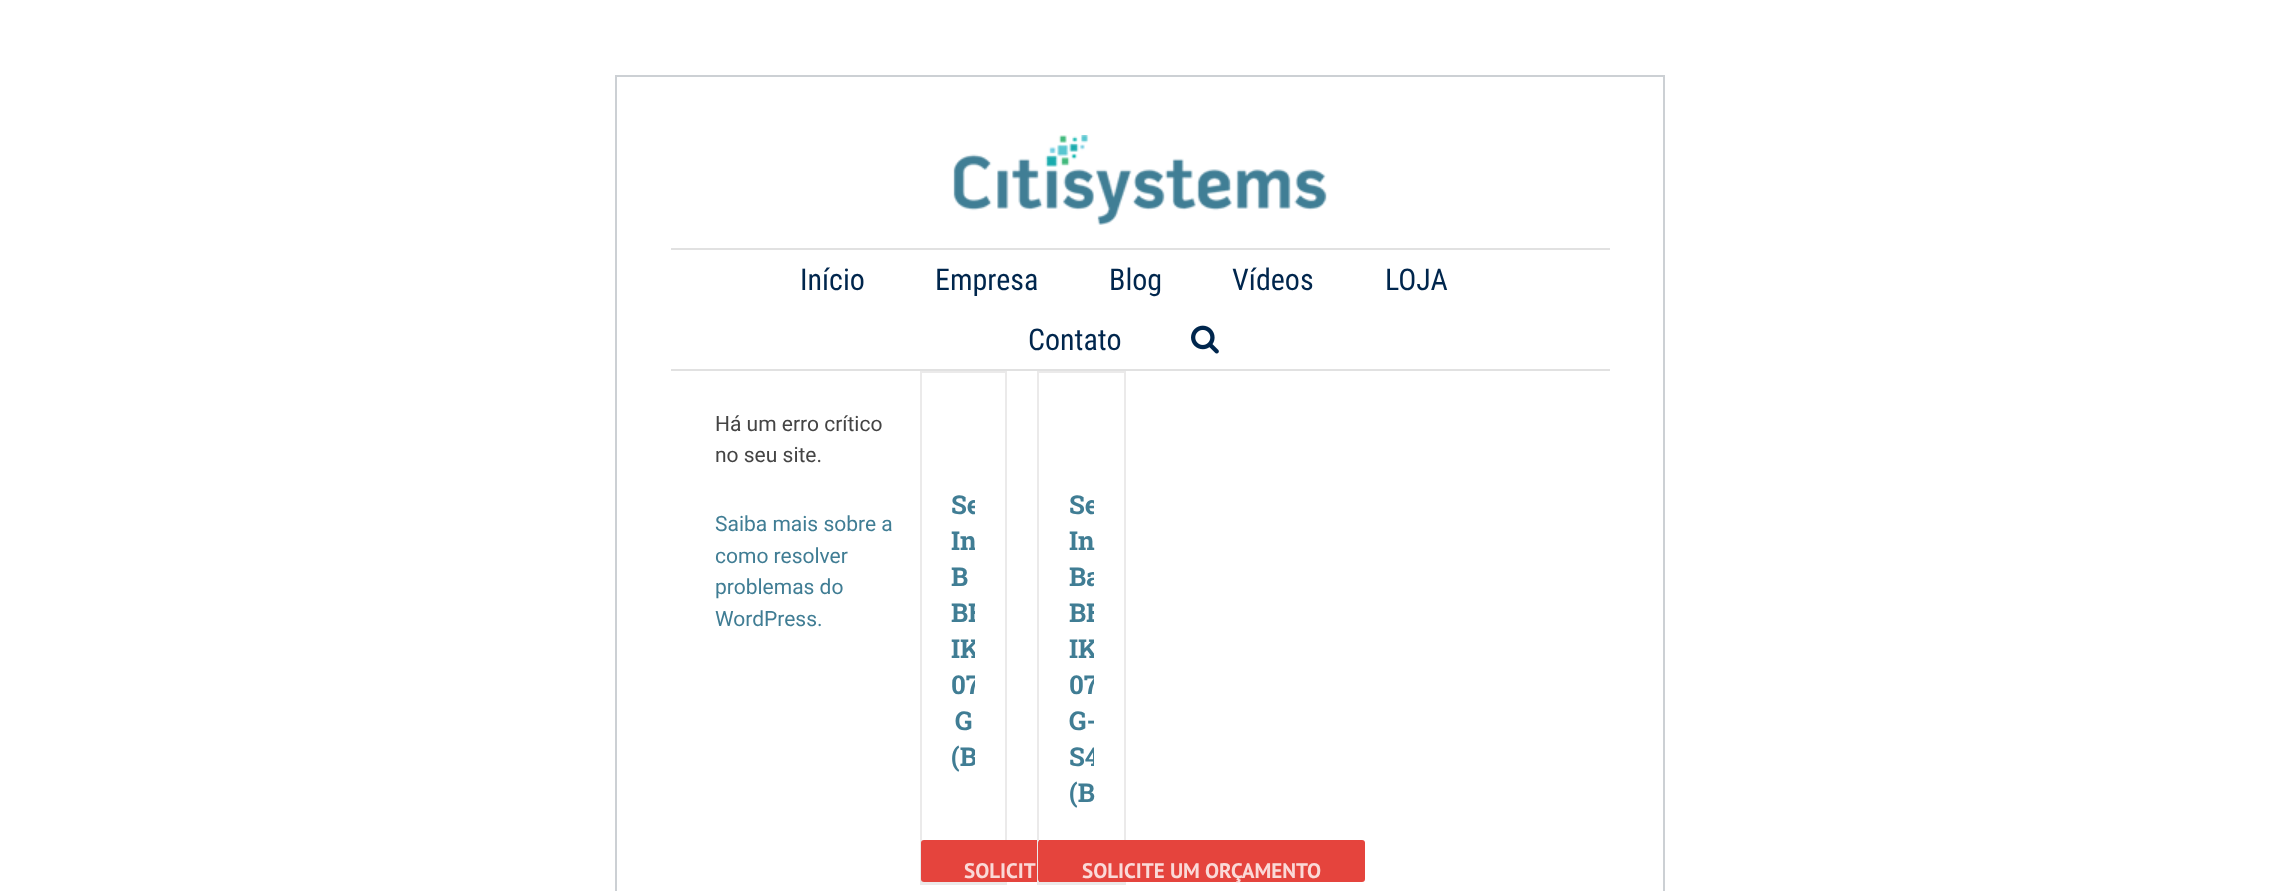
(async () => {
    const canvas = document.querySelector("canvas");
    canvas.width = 2279;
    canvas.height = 891;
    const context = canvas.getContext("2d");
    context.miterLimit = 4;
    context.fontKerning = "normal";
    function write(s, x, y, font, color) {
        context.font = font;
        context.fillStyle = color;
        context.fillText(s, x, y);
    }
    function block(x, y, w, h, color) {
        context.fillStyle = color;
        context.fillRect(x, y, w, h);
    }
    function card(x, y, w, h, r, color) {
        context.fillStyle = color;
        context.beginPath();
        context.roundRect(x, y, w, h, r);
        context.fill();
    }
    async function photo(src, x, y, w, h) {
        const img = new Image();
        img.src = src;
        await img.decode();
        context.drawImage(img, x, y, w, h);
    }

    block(0, 0, 2279, 891, "rgb(255, 255, 255)");
    context.strokeStyle = "rgb(204, 208, 212)";
    context.lineWidth = 2;
    context.strokeRect(616, 76, 1048, 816);
    block(671, 248, 939, 2, "rgb(225, 225, 225)");
    await photo("media/1.png", 953, 135, 374, 90);
    block(671, 369, 939, 2, "rgb(225, 225, 225)");
    write("Início", 800, 290, "30px Roboto Condensed", "rgb(0, 38, 77)");
    write("Empresa", 935, 290, "30px Roboto Condensed", "rgb(0, 38, 77)");
    write("Blog", 1109, 290, "30px Roboto Condensed", "rgb(0, 38, 77)");
    write("Vídeos", 1232, 290, "30px Roboto Condensed", "rgb(0, 38, 77)");
    write("LOJA", 1385, 290, "30px Roboto Condensed", "rgb(0, 38, 77)");
    write("Contato", 1028, 350, "30px Roboto Condensed", "rgb(0, 38, 77)");
    await photo("media/2.png", 1191, 325, 28, 29);
    write("Há um erro crítico", 715, 431, "21px Roboto", "rgb(68, 68, 68)");
    write("no seu site.", 715, 462, "21px Roboto", "rgb(68, 68, 68)");
    write("Saiba mais sobre a", 715, 531, "21px Roboto", "rgb(64, 125, 148)");
    write("como resolver", 715, 563, "21px Roboto", "rgb(64, 125, 148)");
    write("problemas do", 715, 594, "21px Roboto", "rgb(64, 125, 148)");
    write("WordPress.", 715, 626, "21px Roboto", "rgb(64, 125, 148)");
    block(920, 371, 87, 2, "rgb(235, 234, 234)");
    block(1005, 371, 2, 469, "rgb(235, 234, 234)");
    block(920, 882, 87, 3, "rgb(235, 234, 234)");
    block(920, 371, 2, 514, "rgb(235, 234, 234)");
    context.save();
    context.beginPath();
    context.rect(951, 488, 24, 288);
    context.clip();
    write("Se", 951, 514, "bold 26px Roboto Slab", "rgb(64, 125, 148)");
    write("In", 951, 550, "bold 26px Roboto Slab", "rgb(64, 125, 148)");
    context.restore();
    write("B", 951, 586, "bold 26px Roboto Slab", "rgb(64, 125, 148)");
    context.save();
    context.beginPath();
    context.rect(951, 488, 24, 288);
    context.clip();
    write("BE", 951, 622, "bold 26px Roboto Slab", "rgb(64, 125, 148)");
    write("IK", 951, 658, "bold 26px Roboto Slab", "rgb(64, 125, 148)");
    write("07", 951, 694, "bold 26px Roboto Slab", "rgb(64, 125, 148)");
    context.restore();
    write("G", 955, 730, "bold 26px Roboto Slab", "rgb(64, 125, 148)");
    context.save();
    context.beginPath();
    context.rect(951, 488, 24, 288);
    context.clip();
    write("(B", 951, 766, "bold 26px Roboto Slab", "rgb(64, 125, 148)");
    context.restore();
    card(921, 840, 326, 42, 3, "rgb(229, 68, 61)");
    write("SOLICIT", 964, 878, "bold 21px PT Sans", "rgb(250, 218, 216)");
    block(1037, 371, 88, 2, "rgb(235, 234, 234)");
    block(1124, 371, 2, 514, "rgb(235, 234, 234)");
    block(1037, 882, 88, 3, "rgb(235, 234, 234)");
    block(1037, 371, 2, 514, "rgb(235, 234, 234)");
    context.save();
    context.beginPath();
    context.rect(1068, 488, 26, 324);
    context.clip();
    write("Se", 1069, 514, "bold 26px Roboto Slab", "rgb(64, 125, 148)");
    context.restore();
    write("In", 1069, 550, "bold 26px Roboto Slab", "rgb(64, 125, 148)");
    context.save();
    context.beginPath();
    context.rect(1068, 488, 26, 324);
    context.clip();
    write("Ba", 1069, 586, "bold 26px Roboto Slab", "rgb(64, 125, 148)");
    write("BE", 1069, 622, "bold 26px Roboto Slab", "rgb(64, 125, 148)");
    write("IK", 1069, 658, "bold 26px Roboto Slab", "rgb(64, 125, 148)");
    write("07", 1069, 694, "bold 26px Roboto Slab", "rgb(64, 125, 148)");
    write("G-", 1069, 730, "bold 26px Roboto Slab", "rgb(64, 125, 148)");
    write("S4", 1069, 766, "bold 26px Roboto Slab", "rgb(64, 125, 148)");
    context.restore();
    write("(B", 1069, 802, "bold 26px Roboto Slab", "rgb(64, 125, 148)");
    card(1038, 840, 327, 42, 3, "rgb(229, 68, 61)");
    write("SOLICITE UM ORÇAMENTO", 1082, 878, "bold 21px PT Sans", "rgb(250, 218, 216)");
})();
